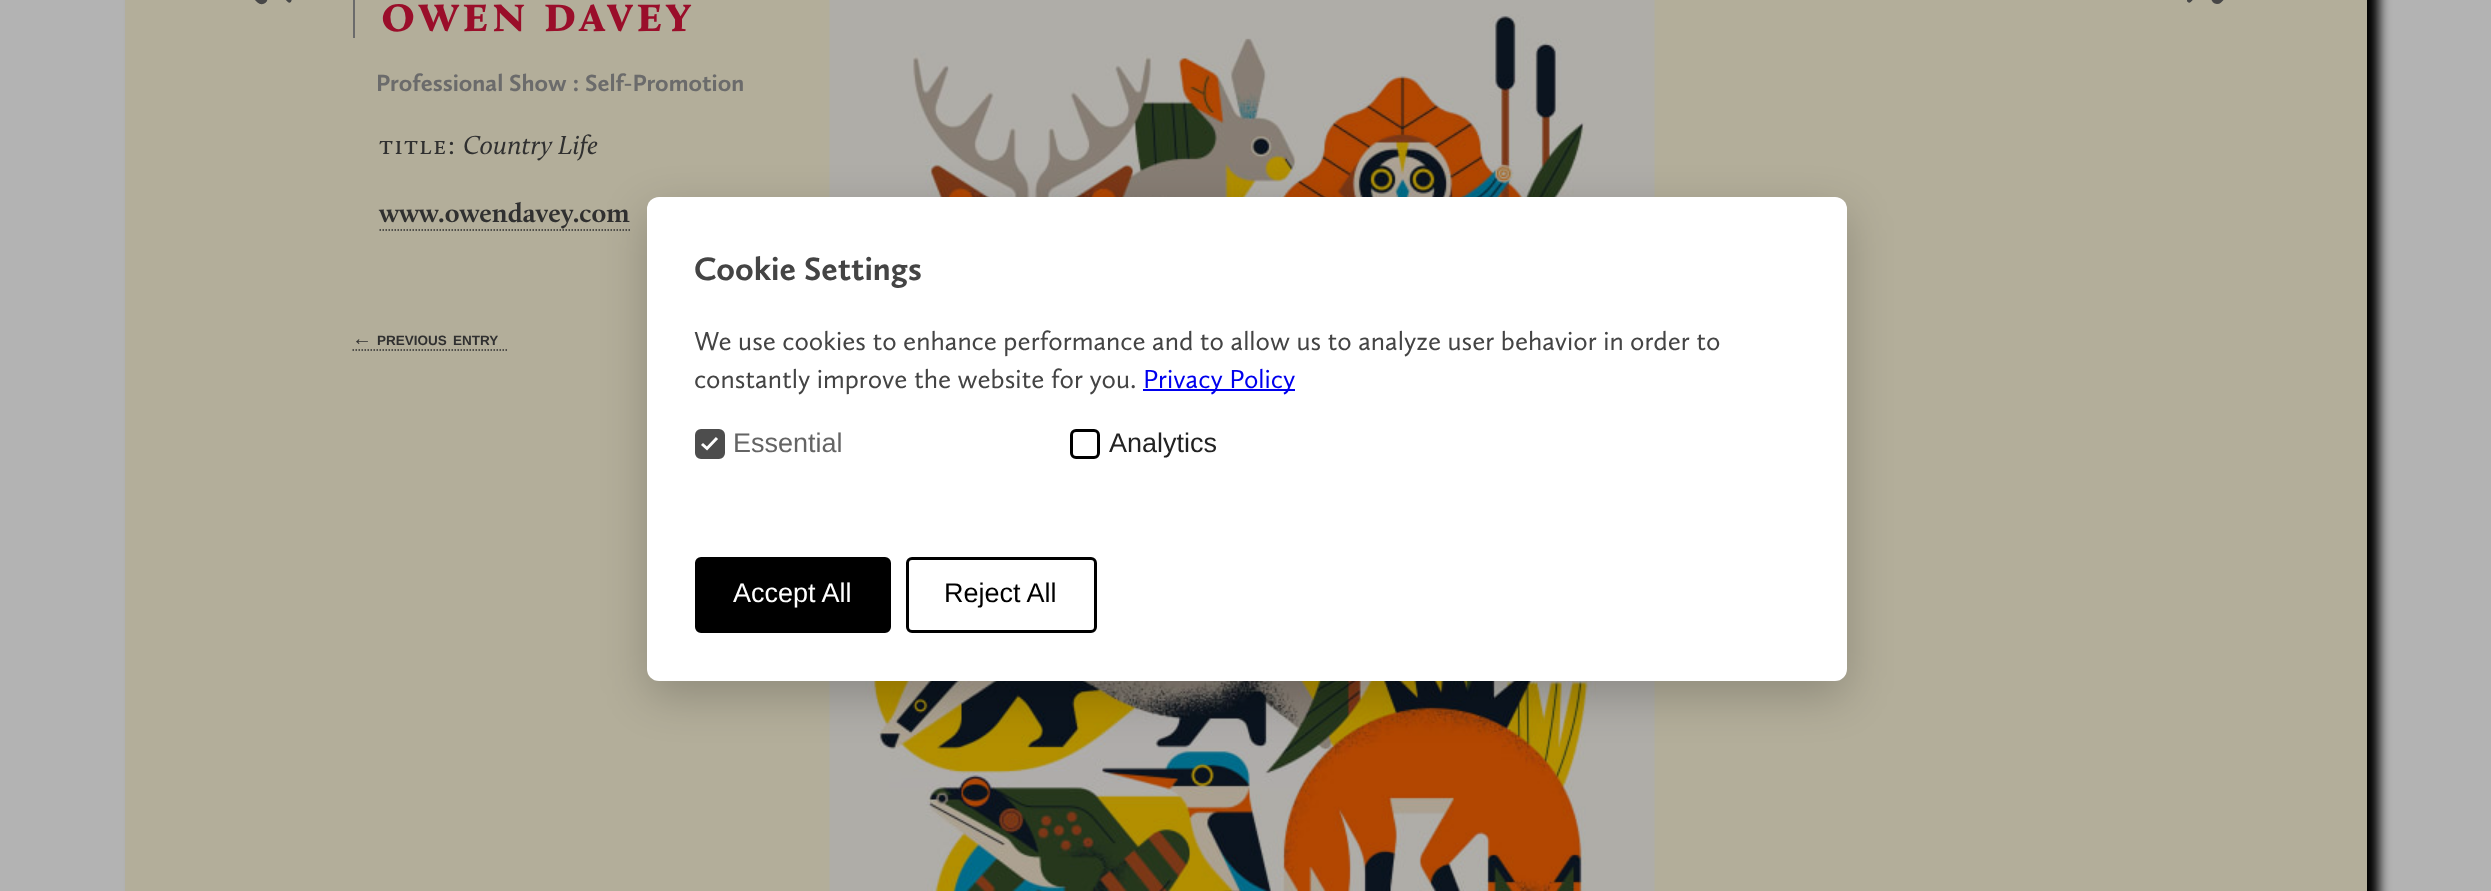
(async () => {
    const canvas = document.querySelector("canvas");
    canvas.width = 2491;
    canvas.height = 891;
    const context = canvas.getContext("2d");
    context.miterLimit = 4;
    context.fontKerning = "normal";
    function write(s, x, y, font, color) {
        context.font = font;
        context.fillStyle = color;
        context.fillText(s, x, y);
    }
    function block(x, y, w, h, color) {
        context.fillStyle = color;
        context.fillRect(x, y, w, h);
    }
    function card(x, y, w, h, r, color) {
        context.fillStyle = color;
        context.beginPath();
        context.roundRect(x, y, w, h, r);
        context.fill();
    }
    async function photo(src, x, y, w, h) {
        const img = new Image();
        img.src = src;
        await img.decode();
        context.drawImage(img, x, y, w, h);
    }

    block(0, 0, 2491, 891, "rgb(179, 179, 179)");
    context.fillStyle = "rgb(0, 0, 0)";
    context.filter = "blur(6px)";
    context.beginPath();
    context.rect(137, -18, 2242, 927);
    context.fill();
    context.filter = "none";
    block(125, 0, 2242, 891, "rgb(179, 174, 154)");
    await photo("media/1.png", 255, 0, 37, 5);
    await photo("media/2.png", 829, 0, 826, 891);
    await photo("media/3.png", 2187, 0, 37, 4);
    block(353, 0, 2, 38, "rgb(107, 107, 107)");
    context.letterSpacing = "3px";
    write("owen davey", 381, 31, "bold 54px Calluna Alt", "rgb(154, 14, 42)");
    context.letterSpacing = "0px";
    write("Professional Show : Self-Promotion", 376, 91, "bold 24.25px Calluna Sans", "rgb(107, 107, 107)");
    context.letterSpacing = "1.5px";
    write("title:", 379, 154, "27px Calluna Alt", "rgb(48, 48, 48)");
    context.letterSpacing = "0px";
    write("Country Life", 463, 154, "italic 27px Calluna", "rgb(48, 48, 48)");
    write("www.owendavey.com", 379, 222, "bold 27px Calluna", "rgb(48, 48, 48)");
    context.beginPath();
    context.moveTo(379.5, 230);
    context.lineTo(630, 230);
    context.strokeStyle = "rgb(48, 48, 48)";
    context.lineWidth = 1.5;
    context.setLineDash([1.5, 1.5]);
    context.stroke();
    write("←", 352, 345, "bold 20px Liberation Sans", "rgb(48, 48, 48)");
    context.beginPath();
    context.moveTo(352.5, 350);
    context.lineTo(507, 350);
    context.stroke();
    write("PREVIOUS", 377, 345, "bold 13.5px Liberation Sans", "rgb(48, 48, 48)");
    write("ENTRY", 453, 345, "bold 13.5px Liberation Sans", "rgb(48, 48, 48)");
    context.fillStyle = "rgba(0, 0, 0, 0.2)";
    context.filter = "blur(22.5px)";
    context.beginPath();
    context.roundRect(647, 212, 1200, 484, 12);
    context.fill();
    context.filter = "none";
    card(647, 197, 1200, 484, 12, "rgb(255, 255, 255)");
    write("Cookie Settings", 694, 280, "bold 33.5px Calluna Sans", "rgb(68, 68, 68)");
    write("We use cookies to enhance performance and to allow us to analyze user behavior in order to", 694, 350, "27px Calluna Sans", "rgb(68, 68, 68)");
    write("constantly improve the website for you.", 694, 388, "27px Calluna Sans", "rgb(68, 68, 68)");
    block(1143, 389, 152, 2, "rgb(0, 0, 238)");
    write("Privacy Policy", 1143, 388, "27px Calluna Sans", "rgb(0, 0, 238)");
    context.fillStyle = "rgb(77, 77, 77)";
    context.beginPath();
    context.roundRect(696.5, 430.5, 27, 27, 4.5);
    context.fill();
    context.strokeStyle = "rgb(77, 77, 77)";
    context.lineWidth = 3;
    context.setLineDash([]);
    context.stroke();
    write("Essential", 733, 452, "27px Liberation Sans", "rgb(100, 100, 100)");
    context.beginPath();
    context.moveTo(702, 444);
    context.lineTo(707, 448.5);
    context.lineTo(717, 438);
    context.strokeStyle = "rgb(255, 255, 255)";
    context.stroke();
    context.beginPath();
    context.roundRect(1071.5, 430.5, 27, 27, 4.5);
    context.strokeStyle = "rgb(0, 0, 0)";
    context.stroke();
    write("Analytics", 1109, 452, "27px Liberation Sans", "rgb(34, 34, 34)");
    context.fillStyle = "rgb(0, 0, 0)";
    context.beginPath();
    context.roundRect(696.5, 558.5, 193, 73, 4.5);
    context.fill();
    context.stroke();
    write("Accept All", 733, 602, "27px Liberation Sans", "rgb(255, 255, 255)");
    context.beginPath();
    context.roundRect(907.5, 558.5, 188, 73, 4.5);
    context.stroke();
    write("Reject All", 944, 602, "27px Liberation Sans", "rgb(0, 0, 0)");
})();
